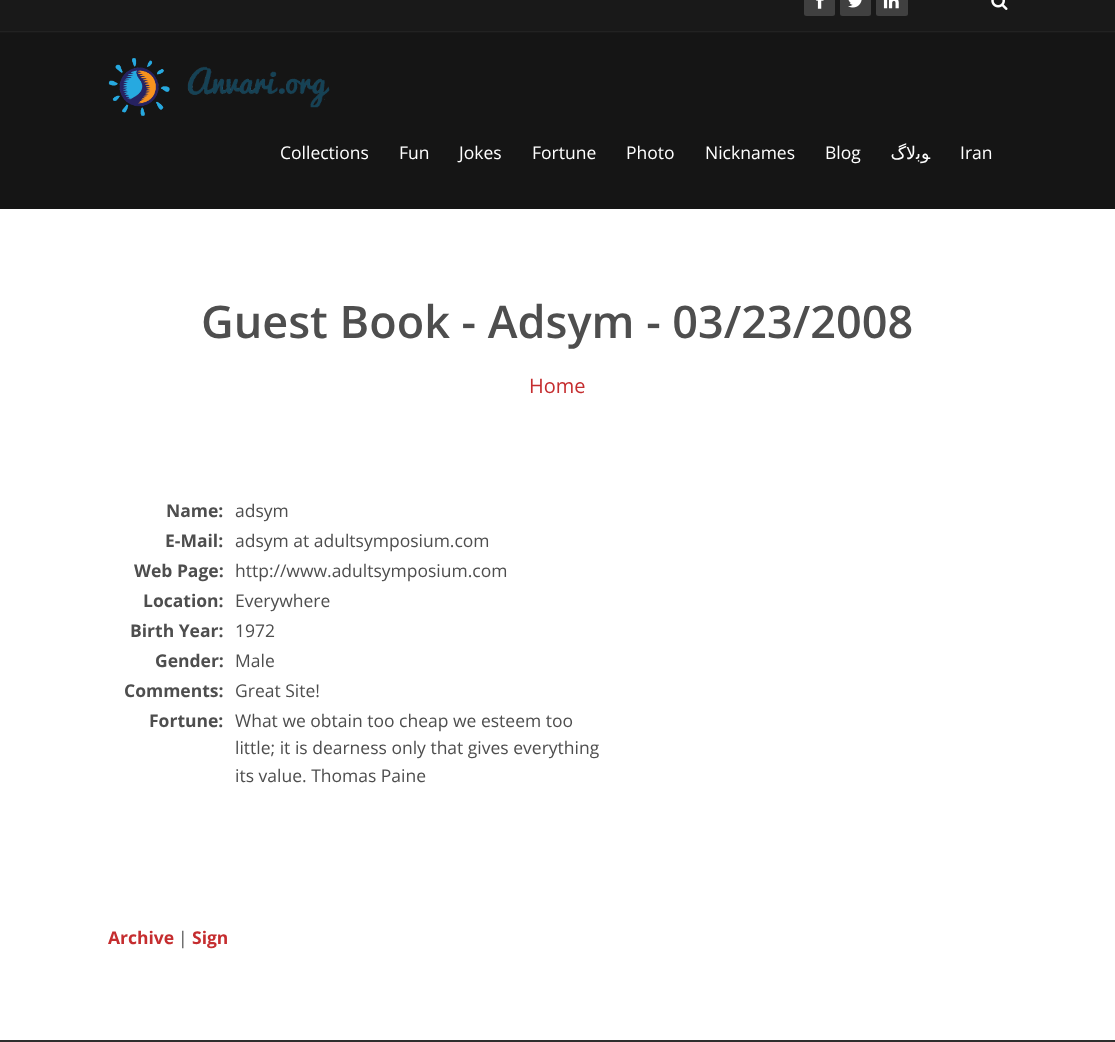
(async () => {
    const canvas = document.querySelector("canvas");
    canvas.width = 1115;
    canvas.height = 1042;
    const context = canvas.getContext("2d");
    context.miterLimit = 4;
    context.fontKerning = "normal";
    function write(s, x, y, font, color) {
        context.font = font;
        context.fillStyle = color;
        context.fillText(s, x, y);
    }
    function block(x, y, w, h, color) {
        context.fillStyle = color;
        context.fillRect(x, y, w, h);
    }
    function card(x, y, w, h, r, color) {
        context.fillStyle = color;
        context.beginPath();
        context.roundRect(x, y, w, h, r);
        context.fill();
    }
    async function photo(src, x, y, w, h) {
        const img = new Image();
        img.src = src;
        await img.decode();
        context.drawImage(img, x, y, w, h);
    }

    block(0, 0, 1115, 1042, "rgb(255, 255, 255)");
    block(0, 0, 1115, 33, "rgb(25, 25, 25)");
    block(0, 31, 1115, 1, "rgb(34, 34, 34)");
    card(804, -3, 31, 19, 2.5, "rgb(64, 64, 64)");
    await photo("media/1.png", 816, 0, 8, 9);
    card(840, -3, 31, 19, 2.5, "rgb(64, 64, 64)");
    await photo("media/2.png", 848, 0, 14, 8);
    card(876, -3, 32, 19, 2.5, "rgb(64, 64, 64)");
    await photo("media/3.png", 883, 0, 16, 9);
    await photo("media/4.png", 991, 0, 17, 10);
    block(0, 33, 1115, 176, "rgb(21, 21, 21)");
    await photo("media/5.png", 108, 58, 62, 58);
    await photo("media/6.png", 187, 66, 143, 42);
    write("Collections", 280, 159, "17.5px Open Sans", "rgb(255, 255, 255)");
    write("Fun", 399, 159, "17.5px Open Sans", "rgb(255, 255, 255)");
    write("Jokes", 459, 159, "17.5px Open Sans", "rgb(255, 255, 255)");
    write("Fortune", 532, 159, "17.5px Open Sans", "rgb(255, 255, 255)");
    write("Photo", 626, 159, "17.5px Open Sans", "rgb(255, 255, 255)");
    write("Nicknames", 705, 159, "17.5px Open Sans", "rgb(255, 255, 255)");
    write("Blog", 825, 159, "17.5px Open Sans", "rgb(255, 255, 255)");
    context.direction = "rtl";
    write("ﻮﺑﻻگ", 930, 159, "17.5px DejaVu Sans", "rgb(255, 255, 255)");
    context.direction = "ltr";
    write("Iran", 960, 159, "17.5px Open Sans", "rgb(255, 255, 255)");
    write("Guest Book - Adsym - 03/23/2008", 201, 338, "600 45px Open Sans", "rgb(78, 78, 78)");
    write("Home", 529, 393, "20px Open Sans", "rgb(197, 45, 47)");
    write("Name:", 166, 517, "bold 17.5px Open Sans", "rgb(78, 78, 78)");
    write("adsym", 235, 517, "17.5px Open Sans", "rgb(78, 78, 78)");
    write("E-Mail:", 165, 547, "bold 17.5px Open Sans", "rgb(78, 78, 78)");
    write("adsym at adultsymposium.com", 235, 547, "17.5px Open Sans", "rgb(78, 78, 78)");
    write("Web Page:", 134, 577, "bold 17.5px Open Sans", "rgb(78, 78, 78)");
    write("http://www.adultsymposium.com", 235, 577, "17.5px Open Sans", "rgb(78, 78, 78)");
    write("Location:", 143, 607, "bold 17.5px Open Sans", "rgb(78, 78, 78)");
    write("Everywhere", 235, 607, "17.5px Open Sans", "rgb(78, 78, 78)");
    write("Birth Year:", 130, 637, "bold 17.5px Open Sans", "rgb(78, 78, 78)");
    write("1972", 235, 637, "17.5px Open Sans", "rgb(78, 78, 78)");
    write("Gender:", 155, 667, "bold 17.5px Open Sans", "rgb(78, 78, 78)");
    write("Male", 235, 667, "17.5px Open Sans", "rgb(78, 78, 78)");
    write("Comments:", 124, 697, "bold 17.5px Open Sans", "rgb(78, 78, 78)");
    write("Great Site!", 235, 697, "17.5px Open Sans", "rgb(78, 78, 78)");
    write("Fortune:", 149, 727, "bold 17.5px Open Sans", "rgb(78, 78, 78)");
    write("What we obtain too cheap we esteem too", 235, 727, "17.5px Open Sans", "rgb(78, 78, 78)");
    write("little; it is dearness only that gives everything", 235, 754, "17.5px Open Sans", "rgb(78, 78, 78)");
    write("its value. Thomas Paine", 235, 782, "17.5px Open Sans", "rgb(78, 78, 78)");
    write("Archive", 108, 944, "bold 17.5px Open Sans", "rgb(197, 45, 47)");
    write("|", 178, 944, "17.5px Open Sans", "rgb(78, 78, 78)");
    write("Sign", 192, 944, "bold 17.5px Open Sans", "rgb(197, 45, 47)");
    block(0, 1040, 1115, 2, "rgb(46, 46, 46)");
})();
